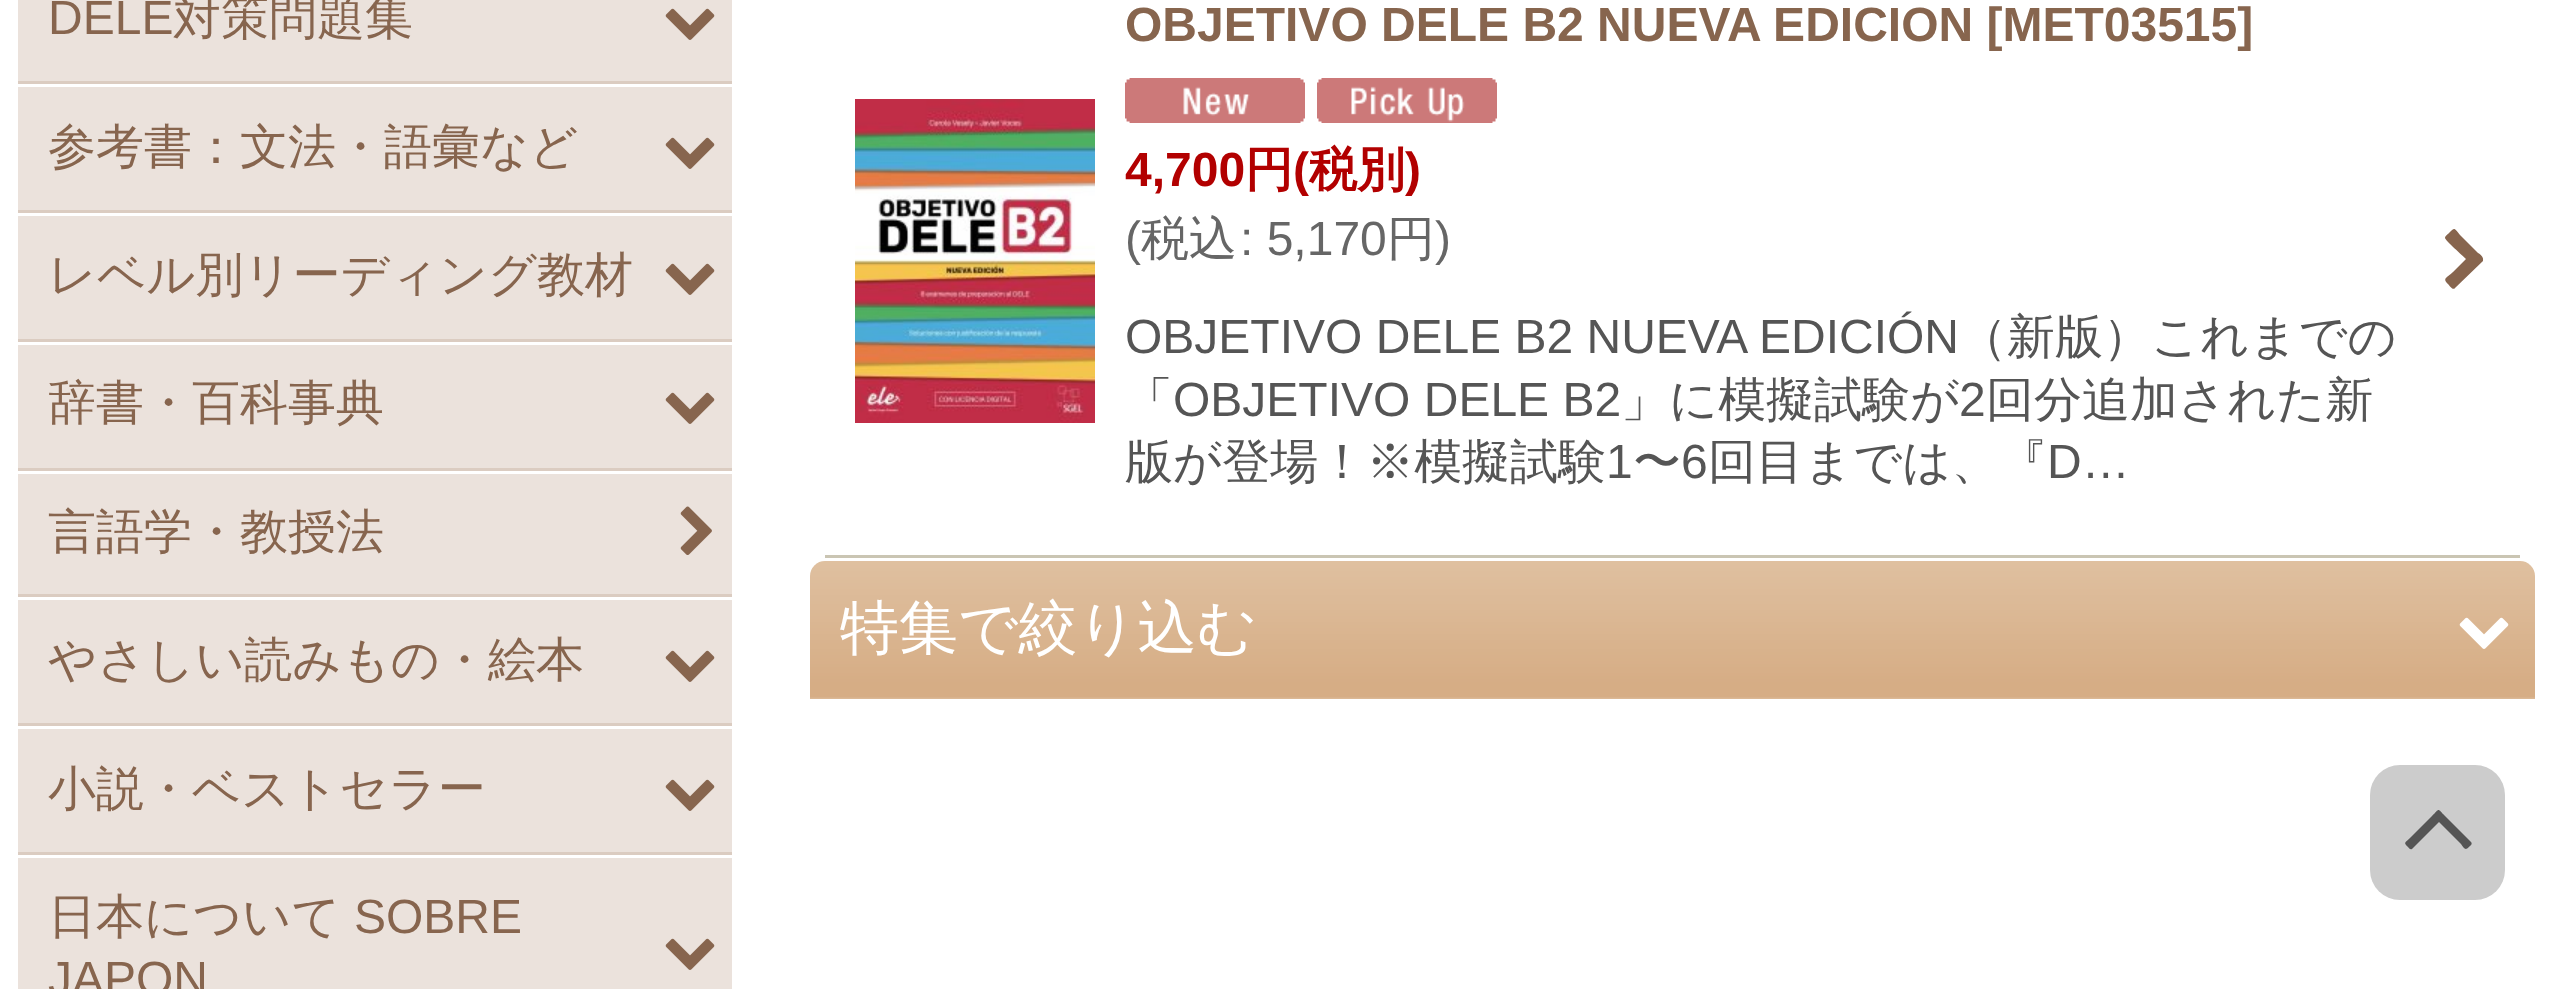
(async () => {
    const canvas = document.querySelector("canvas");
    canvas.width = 2550;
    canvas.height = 989;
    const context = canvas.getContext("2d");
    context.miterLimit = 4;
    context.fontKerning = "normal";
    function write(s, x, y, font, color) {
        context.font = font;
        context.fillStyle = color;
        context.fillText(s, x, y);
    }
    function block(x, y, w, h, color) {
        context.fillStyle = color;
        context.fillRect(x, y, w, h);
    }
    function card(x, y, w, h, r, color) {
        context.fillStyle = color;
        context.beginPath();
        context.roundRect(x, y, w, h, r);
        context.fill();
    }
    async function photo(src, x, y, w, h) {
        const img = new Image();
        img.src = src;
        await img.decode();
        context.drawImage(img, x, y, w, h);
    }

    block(0, 0, 2550, 989, "rgb(255, 255, 255)");
    block(18, 0, 714, 81, "rgb(235, 226, 220)");
    block(18, 81, 714, 3, "rgb(219, 204, 193)");
    write("DELE", 48, 34, "48px Liberation Sans", "rgb(135, 101, 78)");
    write("対策問題集", 173, 34, "500 48px WenQuanYi Zen Hei", "rgb(135, 101, 78)");
    await photo("media/1.png", 665, 8, 50, 32);
    block(18, 87, 714, 123, "rgb(235, 226, 220)");
    block(18, 210, 714, 3, "rgb(219, 204, 193)");
    write("参考書：文法・語彙など", 48, 163, "500 48px WenQuanYi Zen Hei", "rgb(135, 101, 78)");
    await photo("media/1.png", 665, 137, 50, 32);
    block(18, 216, 714, 123, "rgb(235, 226, 220)");
    block(18, 339, 714, 3, "rgb(219, 204, 193)");
    write("レベル別リーディング教材", 48, 291, "500 48px WenQuanYi Zen Hei", "rgb(135, 101, 78)");
    await photo("media/1.png", 665, 263, 50, 32);
    block(18, 345, 714, 123, "rgb(235, 226, 220)");
    block(18, 468, 714, 3, "rgb(219, 204, 193)");
    write("辞書・百科事典", 48, 419, "500 48px WenQuanYi Zen Hei", "rgb(135, 101, 78)");
    await photo("media/1.png", 665, 392, 50, 32);
    block(18, 474, 714, 120, "rgb(235, 226, 220)");
    block(18, 594, 714, 3, "rgb(219, 204, 193)");
    write("言語学・教授法", 48, 548, "500 48px WenQuanYi Zen Hei", "rgb(135, 101, 78)");
    await photo("media/2.png", 680, 506, 32, 49);
    block(18, 600, 714, 123, "rgb(235, 226, 220)");
    block(18, 723, 714, 3, "rgb(219, 204, 193)");
    write("やさしい読みもの・絵本", 48, 676, "500 48px WenQuanYi Zen Hei", "rgb(135, 101, 78)");
    await photo("media/1.png", 665, 650, 50, 32);
    block(18, 729, 714, 123, "rgb(235, 226, 220)");
    block(18, 852, 714, 3, "rgb(219, 204, 193)");
    write("小説・ベストセラー", 48, 805, "500 48px WenQuanYi Zen Hei", "rgb(135, 101, 78)");
    await photo("media/1.png", 665, 779, 50, 32);
    block(18, 858, 714, 131, "rgb(235, 226, 220)");
    write("日本について", 48, 933, "500 48px WenQuanYi Zen Hei", "rgb(135, 101, 78)");
    write("SOBRE", 354, 933, "48px Liberation Sans", "rgb(135, 101, 78)");
    await photo("media/1.png", 665, 938, 50, 32);
    write("JAPON", 48, 995, "48px Liberation Sans", "rgb(135, 101, 78)");
    block(825, 555, 1695, 3, "rgb(202, 197, 179)");
    await photo("media/3.png", 855, 99, 240, 324);
    write("OBJETIVO DELE B2 NUEVA EDICION [MET03515]", 1125, 41, "bold 48px Liberation Sans", "rgb(135, 101, 78)");
    await photo("media/4.png", 1125, 78, 180, 45);
    await photo("media/5.png", 1317, 78, 180, 45);
    write("4,700", 1125, 186, "bold 48px Liberation Sans", "rgb(178, 0, 0)");
    write("円", 1245, 186, "bold 48px WenQuanYi Zen Hei", "rgb(178, 0, 0)");
    write("(", 1293, 186, "bold 48px Liberation Sans", "rgb(178, 0, 0)");
    write("税別", 1309, 186, "bold 48px WenQuanYi Zen Hei", "rgb(178, 0, 0)");
    write(")", 1405, 186, "bold 48px Liberation Sans", "rgb(178, 0, 0)");
    write("(", 1125, 255, "48px Liberation Sans", "rgb(102, 102, 102)");
    write("税込", 1141, 255, "500 48px WenQuanYi Zen Hei", "rgb(102, 102, 102)");
    write(": 5,170", 1240, 255, "48px Liberation Sans", "rgb(102, 102, 102)");
    write("円", 1387, 255, "500 48px WenQuanYi Zen Hei", "rgb(102, 102, 102)");
    write(")", 1435, 255, "48px Liberation Sans", "rgb(102, 102, 102)");
    write("OBJETIVO DELE B2 NUEVA EDICIÓN", 1125, 353, "48px Liberation Sans", "rgb(85, 85, 85)");
    write("（新版）これまでの", 1959, 353, "500 48px WenQuanYi Zen Hei", "rgb(85, 85, 85)");
    write("「", 1125, 416, "500 48px WenQuanYi Zen Hei", "rgb(85, 85, 85)");
    write("OBJETIVO DELE B2", 1173, 416, "48px Liberation Sans", "rgb(85, 85, 85)");
    write("」に模擬試験が", 1621, 416, "500 48px WenQuanYi Zen Hei", "rgb(85, 85, 85)");
    write("2", 1959, 416, "48px Liberation Sans", "rgb(85, 85, 85)");
    write("回分追加された新", 1986, 416, "500 48px WenQuanYi Zen Hei", "rgb(85, 85, 85)");
    write("版が登場！※模擬試験", 1125, 478, "500 48px WenQuanYi Zen Hei", "rgb(85, 85, 85)");
    write("1", 1606, 478, "48px Liberation Sans", "rgb(85, 85, 85)");
    write("〜", 1633, 478, "500 48px WenQuanYi Zen Hei", "rgb(85, 85, 85)");
    write("6", 1681, 478, "48px Liberation Sans", "rgb(85, 85, 85)");
    write("回目までは、『", 1708, 478, "500 48px WenQuanYi Zen Hei", "rgb(85, 85, 85)");
    write("D…", 2047, 478, "48px Liberation Sans", "rgb(85, 85, 85)");
    context.fillStyle = "rgb(135, 101, 78)";
    context.beginPath();
    context.moveTo(2483, 261);
    context.lineTo(2455, 288);
    context.bezierCurveTo(2453, 291, 2449, 285, 2448, 284);
    context.bezierCurveTo(2442, 278, 2447, 278, 2453, 272);
    context.lineTo(2466, 259);
    context.bezierCurveTo(2463, 256, 2445, 240, 2445, 238);
    context.bezierCurveTo(2445, 236, 2448, 234, 2449, 233);
    context.bezierCurveTo(2455, 227, 2454, 228, 2460, 235);
    context.lineTo(2478, 253);
    context.bezierCurveTo(2479, 253, 2484, 257, 2483, 260);
    context.closePath();
    context.fill();
    await photo("media/6.png", 810, 561, 1725, 138);
    write("特集で絞り込む", 840, 648, "500 59px WenQuanYi Zen Hei", "rgb(255, 255, 255)");
    await photo("media/7.png", 2459, 617, 50, 32);
    card(2370, 765, 135, 135, 30, "rgb(204, 204, 204)");
    context.fillStyle = "rgb(85, 85, 85)";
    context.beginPath();
    context.moveTo(2471, 842);
    context.bezierCurveTo(2473, 844, 2470, 846, 2469, 847);
    context.bezierCurveTo(2465, 851, 2464, 848, 2461, 844);
    context.lineTo(2439, 822);
    context.lineTo(2412, 849);
    context.bezierCurveTo(2410, 850, 2409, 848, 2408, 847);
    context.bezierCurveTo(2403, 842, 2405, 843, 2411, 837);
    context.lineTo(2432, 816);
    context.bezierCurveTo(2440, 808, 2437, 808, 2445, 816);
    context.closePath();
    context.fill();
})();
